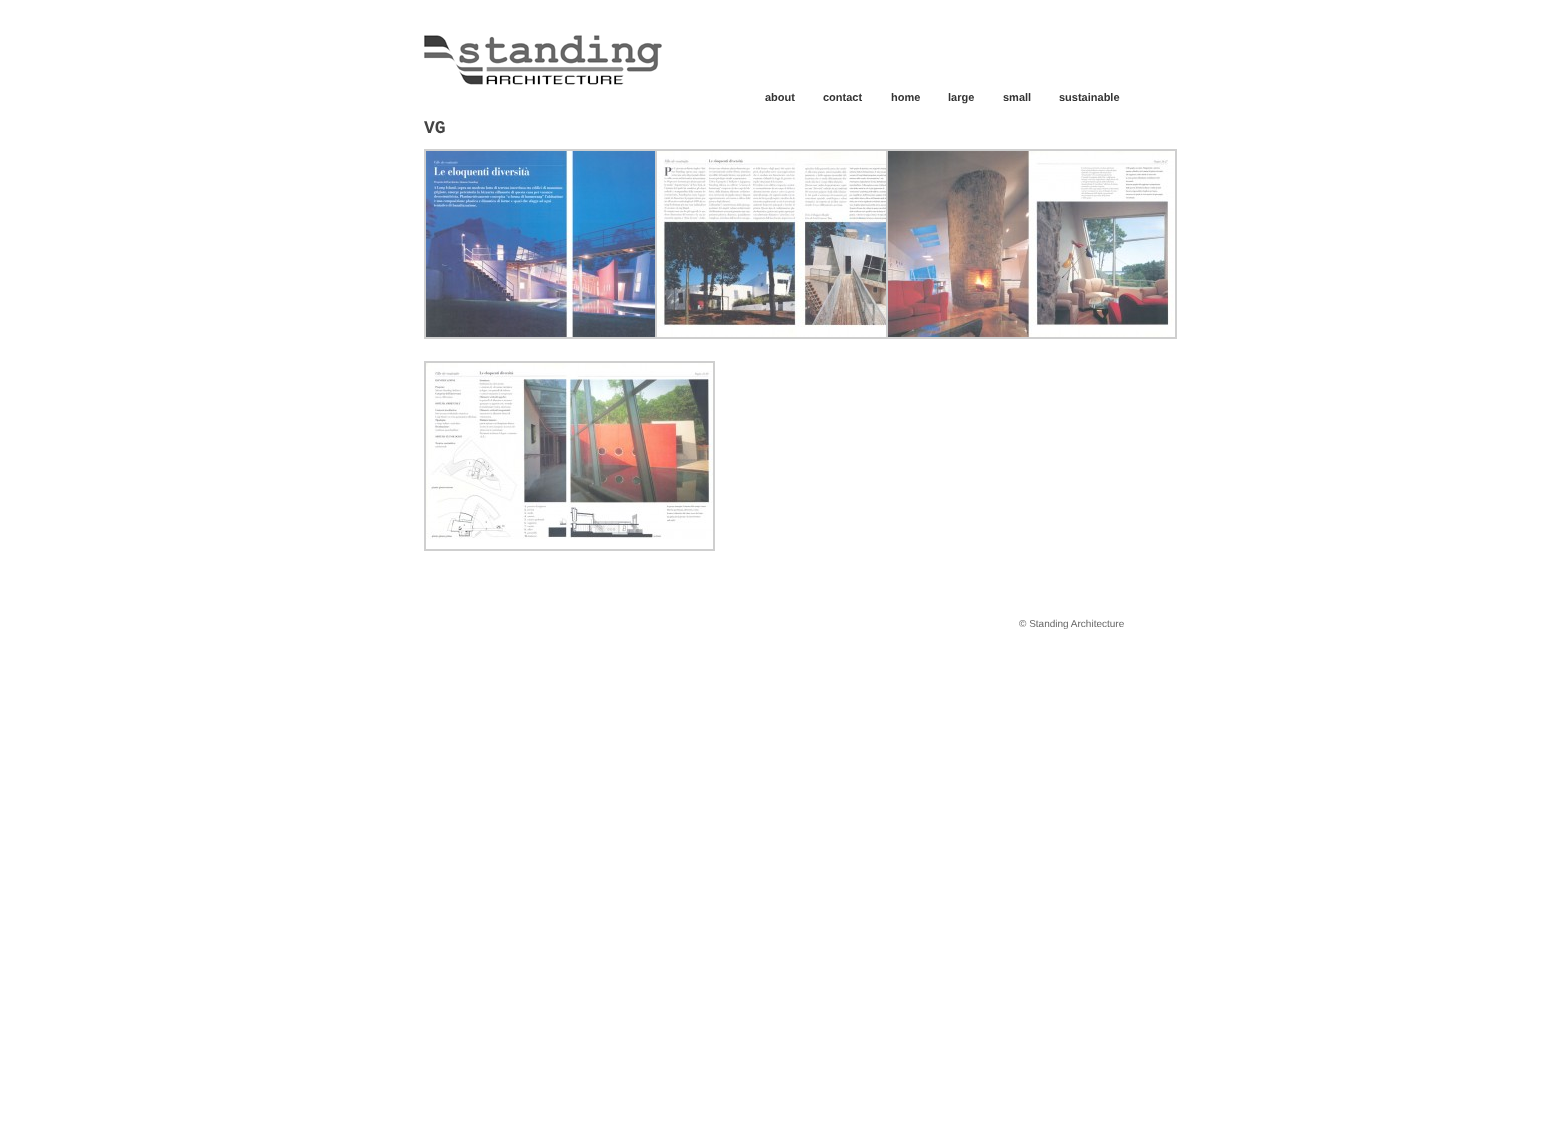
(async () => {
    const canvas = document.querySelector("canvas");
    canvas.width = 1548;
    canvas.height = 1125;
    const context = canvas.getContext("2d");
    context.miterLimit = 4;
    context.fontKerning = "normal";
    function write(s, x, y, font, color) {
        context.font = font;
        context.fillStyle = color;
        context.fillText(s, x, y);
    }
    function block(x, y, w, h, color) {
        context.fillStyle = color;
        context.fillRect(x, y, w, h);
    }
    async function photo(src, x, y, w, h) {
        const img = new Image();
        img.src = src;
        await img.decode();
        context.drawImage(img, x, y, w, h);
    }

    block(0, 0, 1548, 1125, "rgb(255, 255, 255)");
    await photo("media/1.png", 424, 35, 238, 50);
    write("about", 765, 101, "bold 11px Liberation Sans", "rgb(51, 51, 51)");
    write("contact", 823, 101, "bold 11px Liberation Sans", "rgb(51, 51, 51)");
    write("home", 891, 101, "bold 11px Liberation Sans", "rgb(51, 51, 51)");
    write("large", 948, 101, "bold 11px Liberation Sans", "rgb(51, 51, 51)");
    write("small", 1003, 101, "bold 11px Liberation Sans", "rgb(51, 51, 51)");
    write("sustainable", 1059, 101, "bold 11px Liberation Sans", "rgb(51, 51, 51)");
    write("VG", 424, 133, "bold 18px Liberation Mono", "rgb(68, 68, 68)");
    context.strokeStyle = "rgb(207, 207, 207)";
    context.lineWidth = 2;
    context.strokeRect(425, 150, 289, 188);
    await photo("media/2.png", 426, 151, 229, 186);
    context.strokeRect(656, 150, 289, 188);
    await photo("media/3.png", 657, 151, 229, 186);
    block(886, 328, 60, 11, "rgb(255, 255, 255)");
    context.strokeRect(887, 150, 289, 188);
    await photo("media/4.png", 888, 151, 286, 186);
    context.strokeRect(425, 362, 289, 188);
    await photo("media/5.png", 426, 363, 287, 176);
    write("© Standing Architecture", 1019, 627, "10px Liberation Sans", "rgb(102, 102, 102)");
})();
